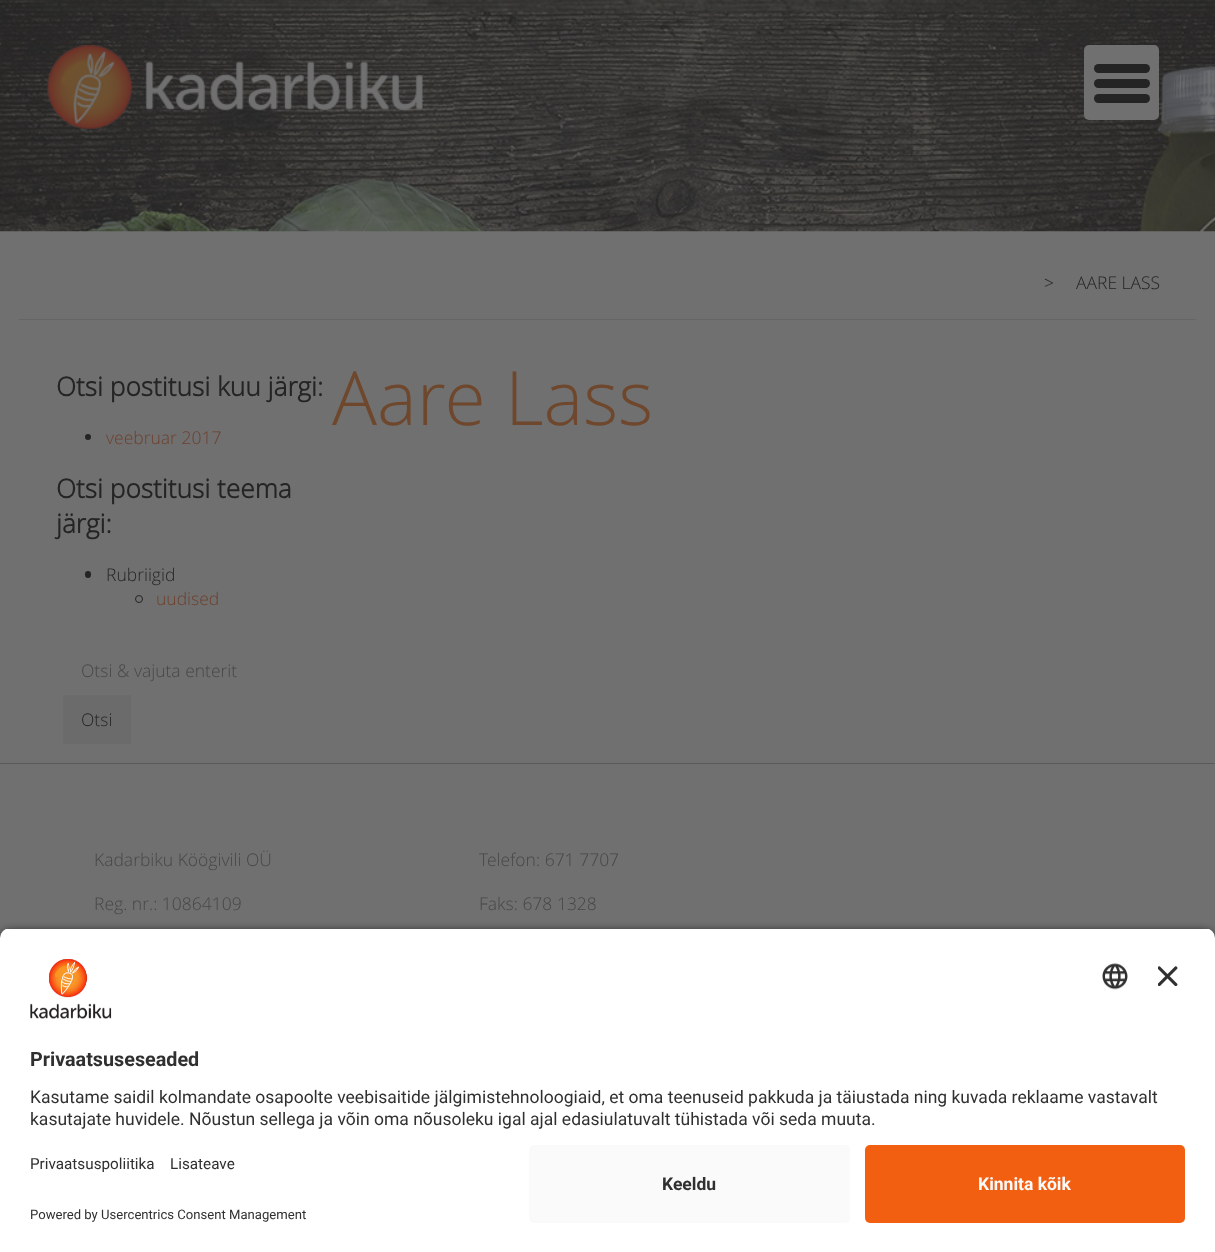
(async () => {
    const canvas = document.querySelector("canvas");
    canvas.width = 1215;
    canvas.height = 1252;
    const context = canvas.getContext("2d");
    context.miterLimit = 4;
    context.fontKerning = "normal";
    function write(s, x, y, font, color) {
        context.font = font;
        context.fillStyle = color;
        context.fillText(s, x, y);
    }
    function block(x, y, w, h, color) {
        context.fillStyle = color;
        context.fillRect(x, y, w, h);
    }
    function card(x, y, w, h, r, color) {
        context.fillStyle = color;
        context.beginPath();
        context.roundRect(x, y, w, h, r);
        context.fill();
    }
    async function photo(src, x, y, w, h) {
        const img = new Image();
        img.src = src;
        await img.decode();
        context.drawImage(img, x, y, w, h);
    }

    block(0, 0, 1215, 1252, "rgb(112, 112, 112)");
    await photo("media/1.png", 0, 0, 1215, 232);
    await photo("media/2.png", 47, 45, 376, 84);
    card(1084, 45, 75, 75, 5, "rgb(112, 112, 112)");
    card(1094, 64, 56, 9, 4.5, "rgb(36, 36, 36)");
    card(1094, 79, 56, 9, 4.5, "rgb(36, 36, 36)");
    card(1094, 94, 56, 9, 4.5, "rgb(36, 36, 36)");
    block(19, 319, 1177, 1, "rgb(101, 101, 101)");
    write(">", 1044, 289, "300 17.5px Open Sans", "rgb(36, 36, 36)");
    write("AARE LASS", 1076, 289, "300 17.5px Open Sans", "rgb(36, 36, 36)");
    write("Otsi postitusi kuu järgi:", 56, 396, "bold 26.25px Open Sans", "rgb(36, 36, 36)");
    context.beginPath();
    context.arc(88, 437, 3, 0, Math.PI * 2);
    context.fill();
    write("veebruar 2017", 106, 444, "300 17.5px Open Sans", "rgb(110, 63, 43)");
    write("Otsi postitusi teema", 56, 498, "bold 26.25px Open Sans", "rgb(36, 36, 36)");
    write("järgi:", 56, 533, "bold 26.25px Open Sans", "rgb(36, 36, 36)");
    card(85, 571, 6, 7, 3, "rgb(36, 36, 36)");
    write("Rubriigid", 106, 581, "300 17.5px Open Sans", "rgb(36, 36, 36)");
    context.beginPath();
    context.arc(139, 599, 3.5, 0, Math.PI * 2);
    context.strokeStyle = "rgb(36, 36, 36)";
    context.stroke();
    write("uudised", 156, 605, "300 17.5px Open Sans", "rgb(110, 63, 43)");
    write("Otsi & vajuta enterit", 81, 677, "300 17.5px Open Sans", "rgb(71, 71, 71)");
    block(63, 695, 68, 49, "rgb(107, 107, 107)");
    write("Otsi", 81, 726, "300 17.5px Open Sans", "rgb(36, 36, 36)");
    write("Aare Lass", 332, 425, "300 75px Open Sans", "rgb(110, 71, 45)");
    block(0, 763, 1215, 1, "rgb(90, 90, 90)");
    write("Kadarbiku Köögivili OÜ", 94, 866, "300 17.5px Open Sans", "rgb(71, 71, 71)");
    write("Reg. nr.: 10864109", 94, 910, "300 17.5px Open Sans", "rgb(71, 71, 71)");
    write("Telefon: 671 7707", 479, 866, "300 17.5px Open Sans", "rgb(71, 71, 71)");
    write("Faks: 678 1328", 479, 910, "300 17.5px Open Sans", "rgb(71, 71, 71)");
    context.fillStyle = "rgba(0, 0, 0, 0.8)";
    context.filter = "blur(4.5px)";
    context.beginPath();
    context.roundRect(0, 931, 1215, 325, 10);
    context.fill();
    context.filter = "none";
    context.save();
    context.beginPath();
    context.roundRect(0, 928, 1215, 207, [10, 10, 0, 0]);
    context.clip();
    block(0, 929, 1215, 206, "rgb(255, 255, 255)");
    context.restore();
    await photo("media/3.png", 30, 959, 82, 60);
    await photo("media/4.png", 1102, 963, 26, 27);
    await photo("media/5.png", 1158, 966, 20, 20);
    write("Privaatsuseseaded", 30, 1066, "bold 19.75px Roboto", "rgb(48, 48, 48)");
    write("Kasutame saidil kolmandate osapoolte veebisaitide jälgimistehnoloogiaid, et oma teenuseid pakkuda ja täiustada ning kuvada reklaame vastavalt", 30, 1103, "17.5px Roboto", "rgb(48, 48, 48)");
    write("kasutajate huvidele. Nõustun sellega ja võin oma nõusoleku igal ajal edasiulatuvalt tühistada või seda muuta.", 30, 1125, "17.5px Roboto", "rgb(48, 48, 48)");
    block(0, 1135, 1215, 117, "rgb(255, 255, 255)");
    write("Privaatsuspoliitika", 30, 1169, "15.25px Roboto", "rgb(48, 48, 48)");
    write("Lisateave", 170, 1169, "15.25px Roboto", "rgb(48, 48, 48)");
    write("Powered by Usercentrics Consent Management", 30, 1219, "13.1px Roboto", "rgb(48, 48, 48)");
    card(529, 1145, 321, 78, 5, "rgb(250, 250, 250)");
    write("Keeldu", 662, 1190, "bold 17.5px Roboto", "rgb(48, 48, 48)");
    card(865, 1145, 320, 78, 5, "rgb(243, 95, 17)");
    write("Kinnita kõik", 978, 1190, "bold 17.5px Roboto", "rgb(250, 250, 250)");
})();
